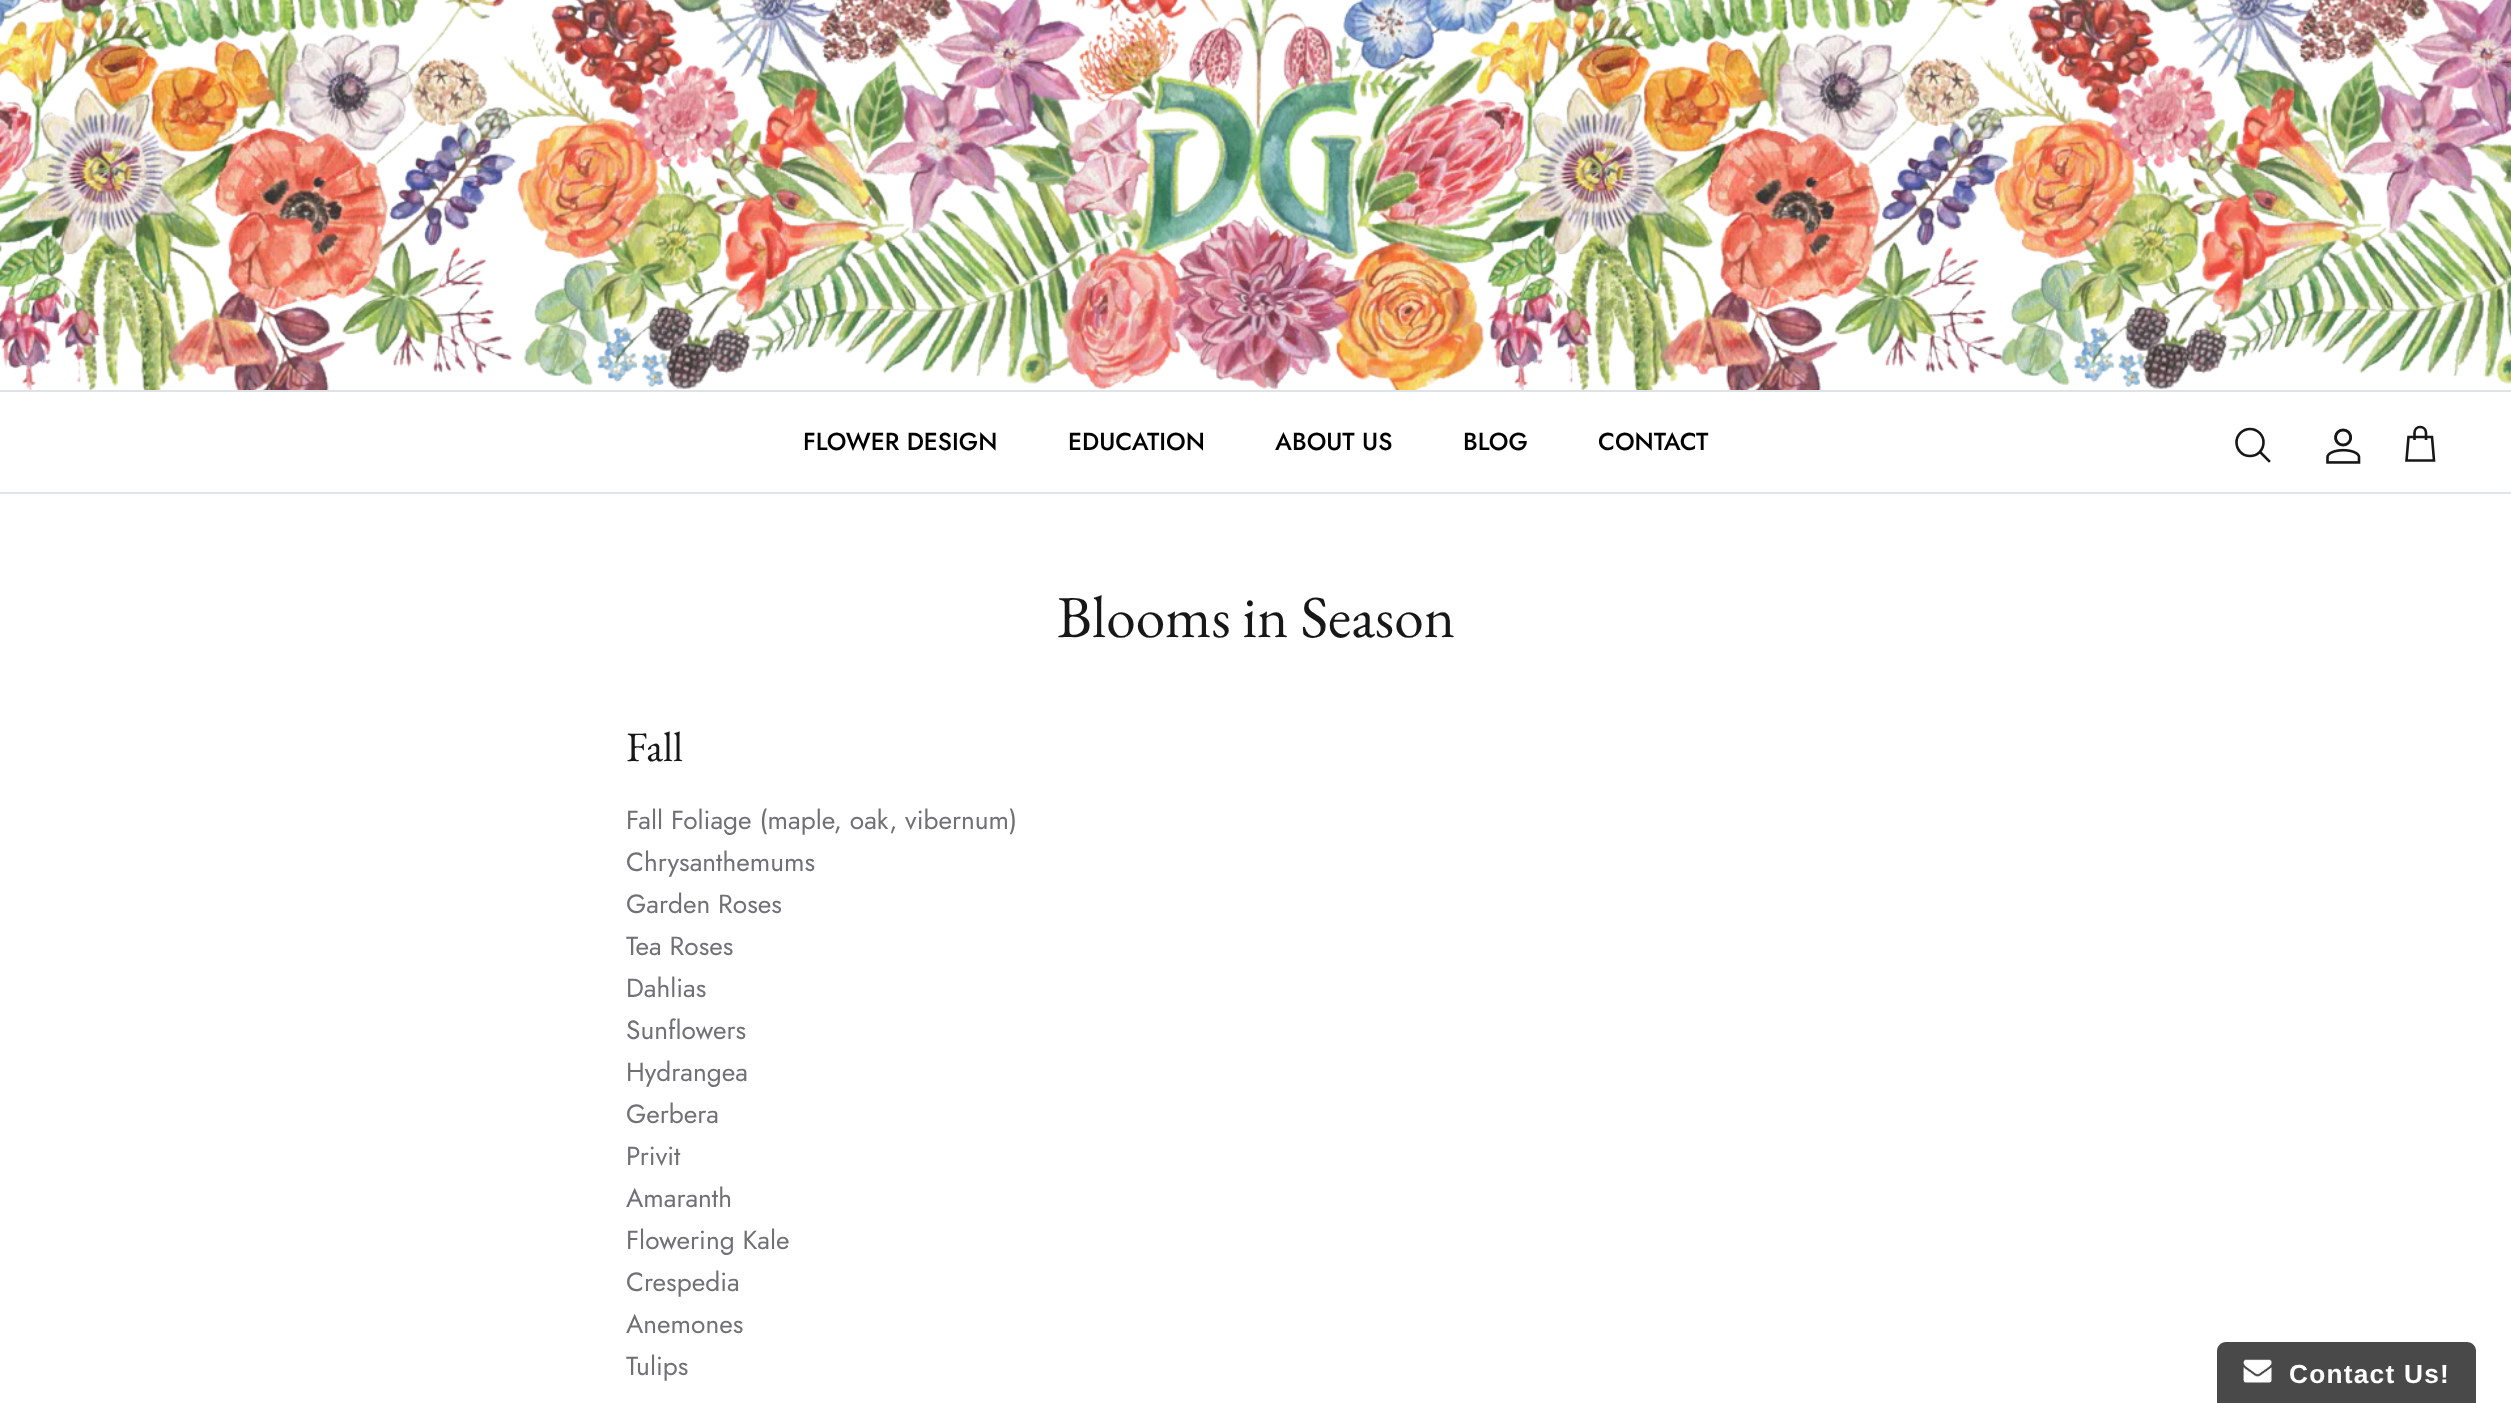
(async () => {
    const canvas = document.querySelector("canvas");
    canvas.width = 2511;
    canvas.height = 1403;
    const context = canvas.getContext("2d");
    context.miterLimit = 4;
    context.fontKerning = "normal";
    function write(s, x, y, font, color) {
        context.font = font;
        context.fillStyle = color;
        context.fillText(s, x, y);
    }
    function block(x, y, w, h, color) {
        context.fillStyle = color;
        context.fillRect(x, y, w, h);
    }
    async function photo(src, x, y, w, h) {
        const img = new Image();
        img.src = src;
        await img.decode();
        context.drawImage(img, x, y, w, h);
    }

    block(0, 0, 2511, 1403, "rgb(255, 255, 255)");
    await photo("media/1.png", 0, 0, 2511, 390);
    block(0, 390, 2511, 2, "rgb(223, 227, 232)");
    block(0, 492, 2511, 2, "rgb(223, 227, 232)");
    write("FLOWER DESIGN", 803, 450, "500 24.5px Jost", "rgb(0, 0, 0)");
    write("EDUCATION", 1068, 450, "500 24.5px Jost", "rgb(0, 0, 0)");
    write("ABOUT US", 1275, 450, "500 24.5px Jost", "rgb(0, 0, 0)");
    write("BLOG", 1463, 450, "500 24.5px Jost", "rgb(0, 0, 0)");
    write("CONTACT", 1598, 450, "500 24.5px Jost", "rgb(0, 0, 0)");
    context.beginPath();
    context.arc(2250, 442.5, 13.5, 0, Math.PI * 2);
    context.strokeStyle = "rgb(23, 23, 23)";
    context.lineWidth = 2.6;
    context.stroke();
    context.beginPath();
    context.moveTo(2261, 453);
    context.lineTo(2269, 461);
    context.lineCap = "square";
    context.stroke();
    await photo("media/2.png", 2326, 428, 35, 36);
    context.beginPath();
    context.moveTo(2426, 440);
    context.lineTo(2426, 433);
    context.bezierCurveTo(2426, 429.5, 2423.5, 427, 2420, 427);
    context.bezierCurveTo(2417, 427, 2414.5, 429.5, 2414.5, 433);
    context.lineTo(2414.5, 440);
    context.moveTo(2408.5, 437);
    context.lineTo(2432, 437);
    context.lineTo(2434, 460.5);
    context.lineTo(2406.5, 460.5);
    context.closePath();
    context.lineCap = "butt";
    context.stroke();
    write("Blooms in Season", 1057, 637, "59.5px EB Garamond", "rgb(23, 23, 23)");
    write("Fall", 626, 761, "42px EB Garamond", "rgb(23, 23, 23)");
    write("Fall Foliage (maple, oak, vibernum)", 626, 829, "26.25px Jost", "rgb(112, 113, 115)");
    write("Chrysanthemums", 626, 871, "26.25px Jost", "rgb(112, 113, 115)");
    write("Garden Roses", 626, 913, "26.25px Jost", "rgb(112, 113, 115)");
    write("Tea Roses", 626, 955, "26.25px Jost", "rgb(112, 113, 115)");
    write("Dahlias", 626, 997, "26.25px Jost", "rgb(112, 113, 115)");
    write("Sunflowers", 626, 1039, "26.25px Jost", "rgb(112, 113, 115)");
    write("Hydrangea", 626, 1081, "26.25px Jost", "rgb(112, 113, 115)");
    write("Gerbera", 626, 1123, "26.25px Jost", "rgb(112, 113, 115)");
    write("Privit", 626, 1165, "26.25px Jost", "rgb(112, 113, 115)");
    write("Amaranth", 626, 1207, "26.25px Jost", "rgb(112, 113, 115)");
    write("Flowering Kale", 626, 1249, "26.25px Jost", "rgb(112, 113, 115)");
    write("Crespedia", 626, 1291, "26.25px Jost", "rgb(112, 113, 115)");
    write("Anemones", 626, 1333, "26.25px Jost", "rgb(112, 113, 115)");
    write("Tulips", 626, 1375, "26.25px Jost", "rgb(112, 113, 115)");
    context.fillStyle = "rgb(73, 73, 73)";
    context.beginPath();
    context.moveTo(2226, 1342);
    context.lineTo(2467, 1342);
    context.bezierCurveTo(2472, 1342, 2476, 1346, 2476, 1351);
    context.lineTo(2476, 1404);
    context.lineTo(2217, 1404);
    context.lineTo(2217, 1351);
    context.bezierCurveTo(2217, 1346, 2221, 1342, 2226, 1342);
    context.closePath();
    context.fill();
    await photo("media/3.png", 2243, 1359, 29, 24);
    context.letterSpacing = "1.25px";
    write("Contact Us!", 2289, 1383, "bold 26.25px Liberation Sans", "rgb(255, 255, 255)");
})();
